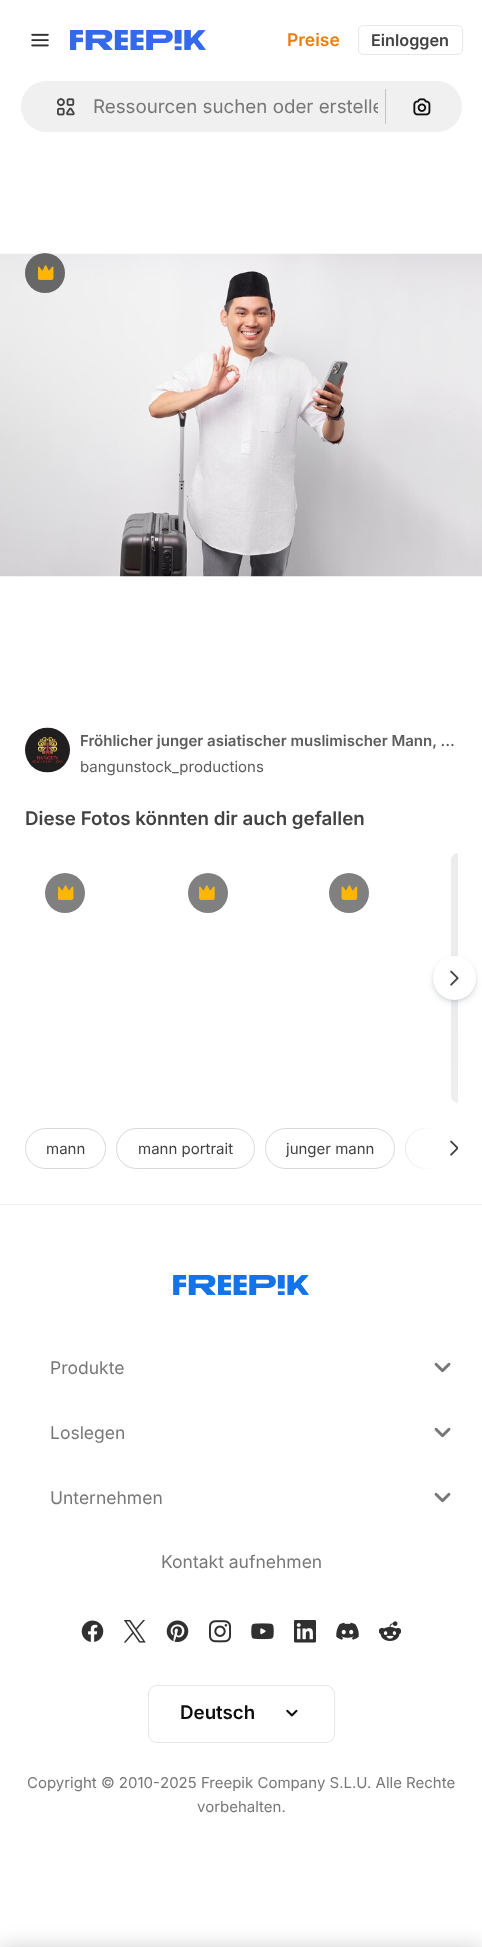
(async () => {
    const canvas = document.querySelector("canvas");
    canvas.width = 482;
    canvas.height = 1947;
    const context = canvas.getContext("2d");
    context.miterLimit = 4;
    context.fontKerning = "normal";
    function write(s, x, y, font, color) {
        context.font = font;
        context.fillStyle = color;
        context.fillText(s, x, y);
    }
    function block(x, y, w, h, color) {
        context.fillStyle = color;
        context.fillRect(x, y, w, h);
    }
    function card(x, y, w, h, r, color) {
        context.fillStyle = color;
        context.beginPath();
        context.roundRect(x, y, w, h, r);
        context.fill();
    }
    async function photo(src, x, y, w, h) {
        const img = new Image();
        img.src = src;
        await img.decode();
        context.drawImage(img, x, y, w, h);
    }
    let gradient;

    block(0, 0, 482, 1947, "rgb(255, 255, 255)");
    await photo("media/1.png", 31, 33, 18, 14);
    await photo("media/2.png", 70, 30, 136, 20);
    write("Preise", 287, 46, "600 17.5px Inter", "rgb(234, 126, 17)");
    context.beginPath();
    context.roundRect(358.5, 25.5, 104, 29, 4.5);
    context.strokeStyle = "rgb(231, 231, 231)";
    context.stroke();
    write("Einloggen", 371, 46, "600 16.25px Inter", "rgb(66, 66, 66)");
    context.fillStyle = "rgb(240, 240, 240)";
    context.beginPath();
    context.roundRect(20.5, 80.5, 442, 52, 26);
    context.fill();
    context.strokeStyle = "rgb(255, 255, 255)";
    context.stroke();
    await photo("media/3.png", 56, 98, 19, 18);
    context.save();
    context.beginPath();
    context.rect(93, 94, 285, 24);
    context.clip();
    write("Ressourcen suchen oder erstelle", 93, 113, "18.75px Inter", "rgb(119, 119, 119)");
    context.restore();
    block(385, 89, 1, 35, "rgb(195, 195, 195)");
    await photo("media/4.png", 413, 98, 18, 18);
    await photo("media/5.png", 0, 253, 482, 324);
    context.fillStyle = "rgba(13, 13, 13, 0.6)";
    context.beginPath();
    context.arc(45, 273, 20, 0, Math.PI * 2);
    context.fill();
    await photo("media/6.png", 38, 265, 16, 15);
    await photo("media/7.png", 25, 727, 45, 46);
    write("Fröhlicher junger asiatischer muslimischer Mann, …", 80, 746, "600 15px Inter", "rgb(92, 92, 92)");
    write("bangunstock_productions", 80, 772, "15px Inter", "rgb(92, 92, 92)");
    write("Diese Fotos könnten dir auch gefallen", 25, 825, "600 18.75px Inter", "rgb(66, 66, 66)");
    context.fillStyle = "rgb(128, 128, 128)";
    context.beginPath();
    context.arc(65, 893, 20, 0, Math.PI * 2);
    context.fill();
    await photo("media/8.png", 58, 885, 16, 15);
    context.beginPath();
    context.arc(208, 893, 20, 0, Math.PI * 2);
    context.fill();
    await photo("media/9.png", 199, 885, 16, 15);
    context.beginPath();
    context.arc(349, 893, 20, 0, Math.PI * 2);
    context.fill();
    await photo("media/10.png", 341, 885, 17, 15);
    gradient = context.createLinearGradient(455, 842, 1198, 1113);
    gradient.addColorStop(0.08, "rgb(236, 236, 236)");
    gradient.addColorStop(0.18, "rgb(245, 245, 245)");
    gradient.addColorStop(0.33, "rgb(236, 236, 236)");
    context.fillStyle = gradient;
    context.beginPath();
    context.roundRect(451, 853, 7, 250, [8, 0, 0, 8]);
    context.fill();
    context.fillStyle = "rgba(55, 73, 87, 0.15)";
    context.filter = "blur(3px)";
    context.beginPath();
    context.roundRect(433, 959, 43, 44, 21.5);
    context.fill();
    context.filter = "none";
    context.fillStyle = "rgba(55, 73, 87, 0.1)";
    context.filter = "blur(1px)";
    context.beginPath();
    context.roundRect(433, 958, 43, 43, 21.5);
    context.fill();
    context.filter = "none";
    card(433, 956, 43, 44, 21.5, "rgb(255, 255, 255)");
    await photo("media/11.png", 450, 970, 9, 16);
    context.beginPath();
    context.roundRect(25.5, 1128.5, 80, 40, 20);
    context.strokeStyle = "rgb(216, 216, 216)";
    context.stroke();
    write("mann", 46, 1154, "15px Inter", "rgb(66, 66, 66)");
    context.beginPath();
    context.roundRect(116.5, 1128.5, 138, 40, 20);
    context.stroke();
    write("mann portrait", 138, 1154, "15px Inter", "rgb(66, 66, 66)");
    context.beginPath();
    context.roundRect(265.5, 1128.5, 129, 40, 20);
    context.stroke();
    write("junger mann", 286, 1154, "15px Inter", "rgb(66, 66, 66)");
    context.save();
    context.beginPath();
    context.rect(25, 1128, 433, 41);
    context.clip();
    context.beginPath();
    context.roundRect(405.5, 1128.5, 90, 40, 20);
    context.stroke();
    context.restore();
    block(433, 1128, 25, 41, "rgb(255, 255, 255)");
    gradient = context.createLinearGradient(433, 1148, 389, 1148);
    gradient.addColorStop(0, "rgb(255, 255, 255)");
    gradient.addColorStop(1, "rgba(255, 255, 255, 0)");
    context.fillStyle = gradient;
    context.fillRect(392, 1128, 41, 41);
    await photo("media/12.png", 450, 1140, 8, 16);
    block(0, 1204, 482, 1, "rgb(240, 240, 240)");
    await photo("media/13.png", 173, 1275, 136, 20);
    write("Produkte", 50, 1374, "17.5px Inter", "rgb(119, 119, 119)");
    await photo("media/14.png", 434, 1362, 17, 11);
    write("Loslegen", 50, 1439, "17.5px Inter", "rgb(119, 119, 119)");
    await photo("media/14.png", 434, 1427, 17, 11);
    write("Unternehmen", 50, 1504, "17.5px Inter", "rgb(119, 119, 119)");
    await photo("media/14.png", 434, 1492, 17, 11);
    write("Kontakt aufnehmen", 161, 1568, "17.5px Inter", "rgb(119, 119, 119)");
    await photo("media/15.png", 81, 1620, 23, 22);
    await photo("media/16.png", 124, 1620, 22, 23);
    await photo("media/17.png", 166, 1620, 23, 22);
    await photo("media/18.png", 209, 1620, 22, 23);
    await photo("media/19.png", 251, 1623, 23, 17);
    await photo("media/20.png", 294, 1620, 22, 23);
    await photo("media/21.png", 336, 1622, 23, 18);
    await photo("media/22.png", 379, 1621, 22, 20);
    context.beginPath();
    context.roundRect(148.5, 1685.5, 186, 57, 8.5);
    context.strokeStyle = "rgb(230, 230, 230)";
    context.stroke();
    write("Deutsch", 180, 1719, "600 18.75px Inter", "rgb(13, 13, 13)");
    await photo("media/23.png", 286, 1709, 12, 8);
    write("Copyright © 2010-", 27, 1788, "15px Inter", "rgb(119, 119, 119)");
    write("2025 Freepik Company S.L.U. Alle Rechte", 160, 1788, "15px Inter", "rgb(119, 119, 119)");
    write("vorbehalten.", 197, 1812, "15px Inter", "rgb(119, 119, 119)");
    context.fillStyle = "rgba(0, 0, 0, 0.2)";
    context.filter = "blur(11px)";
    context.beginPath();
    context.rect(0, 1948, 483, 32);
    context.fill();
    context.filter = "none";
})();
